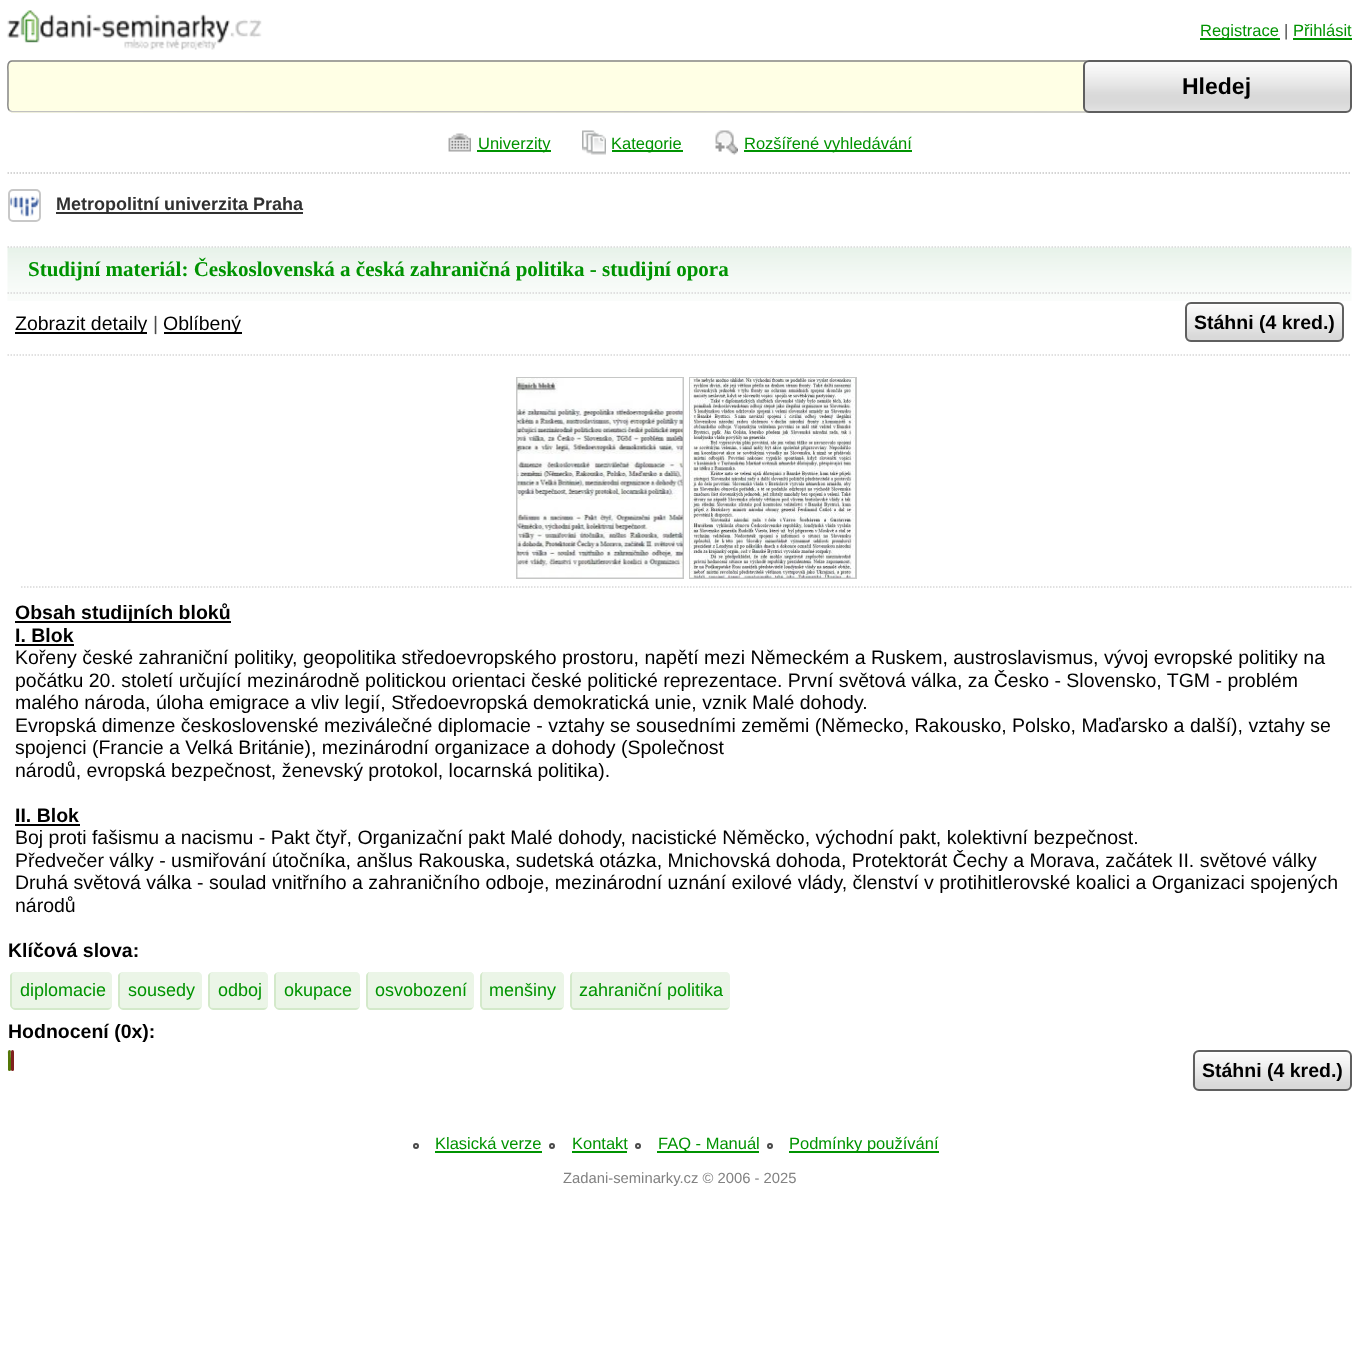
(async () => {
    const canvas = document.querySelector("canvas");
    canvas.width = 1359;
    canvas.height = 1348;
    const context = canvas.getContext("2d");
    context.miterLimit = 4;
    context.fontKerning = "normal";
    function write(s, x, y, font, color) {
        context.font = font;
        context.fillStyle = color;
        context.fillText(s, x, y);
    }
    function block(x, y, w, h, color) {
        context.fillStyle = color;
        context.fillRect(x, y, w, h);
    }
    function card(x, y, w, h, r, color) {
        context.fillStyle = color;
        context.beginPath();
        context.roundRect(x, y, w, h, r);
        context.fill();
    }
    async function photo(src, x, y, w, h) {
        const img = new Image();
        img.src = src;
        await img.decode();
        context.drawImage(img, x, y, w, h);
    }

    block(0, 0, 1359, 1348, "rgb(255, 255, 255)");
    await photo("media/1.png", 7, 10, 255, 40);
    block(1200, 38, 80, 2, "rgb(0, 147, 1)");
    write("Registrace", 1200, 36, "16.5px Liberation Sans", "rgb(0, 147, 1)");
    write("|", 1284, 36, "16.5px Liberation Sans", "rgb(74, 74, 74)");
    write("Přihlásit", 1293, 36, "16.5px Liberation Sans", "rgb(0, 147, 1)");
    block(1293, 38, 59, 2, "rgb(0, 147, 1)");
    card(8, 60, 1090, 53, 5, "rgb(255, 255, 229)");
    context.beginPath();
    context.moveTo(1096, 62);
    context.bezierCurveTo(1098.5, 64, 1097, 70, 1097, 72);
    context.lineTo(1097, 101);
    context.bezierCurveTo(1097, 103.5, 1099, 111.5, 1093.5, 112);
    context.lineTo(11.5, 111.5);
    context.lineTo(9.5, 110.5);
    context.strokeStyle = "rgb(193, 193, 193)";
    context.lineWidth = 1.5;
    context.stroke();
    context.beginPath();
    context.moveTo(9.5, 110.5);
    context.bezierCurveTo(7, 108.5, 8, 102.5, 8, 101);
    context.lineTo(8, 72);
    context.bezierCurveTo(8, 69, 6.5, 61, 12, 61);
    context.lineTo(1094, 61);
    context.lineTo(1096, 62);
    context.strokeStyle = "rgb(135, 135, 135)";
    context.stroke();
    await photo("media/2.png", 1083, 60, 269, 53);
    context.beginPath();
    context.roundRect(1084, 61, 267, 51, 5);
    context.strokeStyle = "rgb(95, 95, 95)";
    context.lineWidth = 2;
    context.stroke();
    write("Hledej", 1182, 94, "bold 23px Liberation Sans", "rgb(0, 0, 0)");
    await photo("media/3.png", 448, 133, 23, 19);
    block(477, 150, 74, 2, "rgb(0, 147, 1)");
    write("Univerzity", 478, 149, "16.5px Liberation Sans", "rgb(0, 147, 1)");
    await photo("media/4.png", 582, 130, 24, 25);
    block(612, 150, 71, 2, "rgb(0, 147, 1)");
    write("Kategorie", 611, 149, "16.5px Liberation Sans", "rgb(0, 147, 1)");
    await photo("media/5.png", 715, 130, 23, 25);
    block(744, 150, 168, 2, "rgb(0, 147, 1)");
    write("Rozšířené vyhledávání", 744, 149, "16.5px Liberation Sans", "rgb(0, 147, 1)");
    context.beginPath();
    context.moveTo(7.5, 173);
    context.lineTo(1351.5, 173);
    context.strokeStyle = "rgb(200, 200, 200)";
    context.lineWidth = 1.5;
    context.setLineDash([1.5, 1.5]);
    context.stroke();
    await photo("media/6.png", 10, 196, 29, 21);
    context.beginPath();
    context.roundRect(9, 190, 31, 31, 4);
    context.lineWidth = 2;
    context.setLineDash([]);
    context.stroke();
    block(56, 212, 247, 2, "rgb(49, 49, 49)");
    write("Metropolitní univerzita Praha", 56, 210, "bold 18px Liberation Sans", "rgb(49, 49, 49)");
    await photo("media/7.png", 7, 247, 1345, 54);
    context.beginPath();
    context.moveTo(7.5, 247);
    context.lineTo(1351.5, 247);
    context.strokeStyle = "rgb(216, 216, 216)";
    context.lineWidth = 1.5;
    context.setLineDash([1.5, 1.5]);
    context.stroke();
    write("Studijní materiál: Československá a česká zahraničná politika - studijní opora", 28, 276, "bold 21px Liberation Serif", "rgb(0, 147, 1)");
    context.beginPath();
    context.moveTo(7.5, 293);
    context.lineTo(1351.5, 293);
    context.stroke();
    context.beginPath();
    context.moveTo(7.5, 355);
    context.lineTo(1351.5, 355);
    context.stroke();
    block(15, 332, 132, 2, "rgb(0, 0, 0)");
    write("Zobrazit detaily", 15, 330, "19.5px Liberation Sans", "rgb(0, 0, 0)");
    write("|", 153, 330, "19.5px Liberation Sans", "rgb(74, 74, 74)");
    block(164, 332, 78, 2, "rgb(0, 0, 0)");
    write("Oblíbený", 163, 330, "19.5px Liberation Sans", "rgb(0, 0, 0)");
    await photo("media/8.png", 1185, 305, 159, 37);
    context.beginPath();
    context.roundRect(1186, 303, 157, 38, 5);
    context.strokeStyle = "rgb(95, 95, 95)";
    context.lineWidth = 2;
    context.setLineDash([]);
    context.stroke();
    write("Stáhni (4 kred.)", 1194, 329, "bold 19.5px Liberation Sans", "rgb(0, 0, 0)");
    context.beginPath();
    context.moveTo(21, 587);
    context.lineTo(1351.5, 587);
    context.strokeStyle = "rgb(216, 216, 216)";
    context.lineWidth = 1.5;
    context.setLineDash([1.5, 1.5]);
    context.stroke();
    context.strokeStyle = "rgb(198, 199, 198)";
    context.lineWidth = 2;
    context.setLineDash([]);
    context.strokeRect(517, 378, 166, 200);
    context.strokeRect(690, 378, 166, 200);
    await photo("media/9.png", 517, 378, 166, 200);
    await photo("media/10.png", 690, 378, 165, 200);
    block(15, 621, 216, 2, "rgb(0, 0, 0)");
    write("Obsah studijních bloků", 15, 619, "bold 19.5px Liberation Sans", "rgb(0, 0, 0)");
    write("I. Blok", 15, 642, "bold 19.5px Liberation Sans", "rgb(0, 0, 0)");
    block(15, 644, 59, 2, "rgb(0, 0, 0)");
    write("Kořeny české zahraniční politiky, geopolitika středoevropského prostoru, napětí mezi Německém a Ruskem, austroslavismus, vývoj evropské politiky na", 15, 664, "19.5px Liberation Sans", "rgb(0, 0, 0)");
    write("počátku 20. století určující mezinárodně politickou orientaci české politické reprezentace. První světová válka, za Česko - Slovensko, TGM - problém", 15, 687, "19.5px Liberation Sans", "rgb(0, 0, 0)");
    write("malého národa, úloha emigrace a vliv legií, Středoevropská demokratická unie, vznik Malé dohody.", 15, 709, "19.5px Liberation Sans", "rgb(0, 0, 0)");
    write("Evropská dimenze československé meziválečné diplomacie - vztahy se sousedními zeměmi (Německo, Rakousko, Polsko, Maďarsko a další), vztahy se", 15, 732, "19.5px Liberation Sans", "rgb(0, 0, 0)");
    write("spojenci (Francie a Velká Británie), mezinárodní organizace a dohody (Společnost", 15, 754, "19.5px Liberation Sans", "rgb(0, 0, 0)");
    write("národů, evropská bezpečnost, ženevský protokol, locarnská politika).", 15, 777, "19.5px Liberation Sans", "rgb(0, 0, 0)");
    write("II. Blok", 15, 822, "bold 19.5px Liberation Sans", "rgb(0, 0, 0)");
    block(15, 824, 65, 2, "rgb(0, 0, 0)");
    write("Boj proti fašismu a nacismu - Pakt čtyř, Organizační pakt Malé dohody, nacistické Něměcko, východní pakt, kolektivní bezpečnost.", 15, 844, "19.5px Liberation Sans", "rgb(0, 0, 0)");
    write("Předvečer války - usmiřování útočníka, anšlus Rakouska, sudetská otázka, Mnichovská dohoda, Protektorát Čechy a Morava, začátek II. světové války", 15, 867, "19.5px Liberation Sans", "rgb(0, 0, 0)");
    write("Druhá světová válka - soulad vnitřního a zahraničního odboje, mezinárodní uznání exilové vlády, členství v protihitlerovské koalici a Organizaci spojených", 15, 889, "19.5px Liberation Sans", "rgb(0, 0, 0)");
    write("národů", 15, 912, "19.5px Liberation Sans", "rgb(0, 0, 0)");
    write("Klíčová slova:", 8, 957, "bold 19.5px Liberation Sans", "rgb(0, 0, 0)");
    context.fillStyle = "rgb(235, 245, 231)";
    context.beginPath();
    context.moveTo(15, 972);
    context.lineTo(108, 972);
    context.bezierCurveTo(110, 972, 112, 974, 112, 976);
    context.lineTo(112, 1005);
    context.bezierCurveTo(112, 1007, 110, 1008, 108, 1008);
    context.lineTo(15, 1008);
    context.bezierCurveTo(13, 1008, 12, 1007, 12, 1005);
    context.lineTo(12, 976);
    context.bezierCurveTo(12, 974, 13, 972, 15, 972);
    context.closePath();
    context.fill();
    context.fillStyle = "rgb(211, 233, 202)";
    context.beginPath();
    context.moveTo(15, 972);
    context.lineTo(108, 972);
    context.bezierCurveTo(110, 972, 112, 974, 112, 976);
    context.lineTo(112, 1005);
    context.bezierCurveTo(112, 1007, 110, 1010, 108, 1010);
    context.lineTo(15, 1010);
    context.bezierCurveTo(13, 1010, 10, 1007, 10, 1005);
    context.lineTo(10, 976);
    context.bezierCurveTo(10, 974, 13, 972, 15, 972);
    context.closePath();
    context.moveTo(15, 972);
    context.lineTo(108, 972);
    context.bezierCurveTo(110, 972, 112, 974, 112, 976);
    context.lineTo(112, 1005);
    context.bezierCurveTo(112, 1007, 110, 1008, 108, 1008);
    context.lineTo(15, 1008);
    context.bezierCurveTo(13, 1008, 12, 1007, 12, 1005);
    context.lineTo(12, 976);
    context.bezierCurveTo(12, 974, 13, 972, 15, 972);
    context.closePath();
    context.fill("evenodd");
    write("diplomacie", 20, 996, "18px Liberation Sans", "rgb(0, 147, 1)");
    context.fillStyle = "rgb(235, 245, 231)";
    context.beginPath();
    context.moveTo(123, 972);
    context.lineTo(198, 972);
    context.bezierCurveTo(200, 972, 202, 974, 202, 976);
    context.lineTo(202, 1005);
    context.bezierCurveTo(202, 1007, 200, 1008, 198, 1008);
    context.lineTo(123, 1008);
    context.bezierCurveTo(121, 1008, 120, 1007, 120, 1005);
    context.lineTo(120, 976);
    context.bezierCurveTo(120, 974, 121, 972, 123, 972);
    context.closePath();
    context.fill();
    context.fillStyle = "rgb(211, 233, 202)";
    context.beginPath();
    context.moveTo(123, 972);
    context.lineTo(198, 972);
    context.bezierCurveTo(200, 972, 202, 974, 202, 976);
    context.lineTo(202, 1005);
    context.bezierCurveTo(202, 1007, 200, 1010, 198, 1010);
    context.lineTo(123, 1010);
    context.bezierCurveTo(121, 1010, 118, 1007, 118, 1005);
    context.lineTo(118, 976);
    context.bezierCurveTo(118, 974, 121, 972, 123, 972);
    context.closePath();
    context.moveTo(123, 972);
    context.lineTo(198, 972);
    context.bezierCurveTo(200, 972, 202, 974, 202, 976);
    context.lineTo(202, 1005);
    context.bezierCurveTo(202, 1007, 200, 1008, 198, 1008);
    context.lineTo(123, 1008);
    context.bezierCurveTo(121, 1008, 120, 1007, 120, 1005);
    context.lineTo(120, 976);
    context.bezierCurveTo(120, 974, 121, 972, 123, 972);
    context.closePath();
    context.fill("evenodd");
    write("sousedy", 128, 996, "18px Liberation Sans", "rgb(0, 147, 1)");
    context.fillStyle = "rgb(235, 245, 231)";
    context.beginPath();
    context.moveTo(213, 972);
    context.lineTo(264, 972);
    context.bezierCurveTo(266, 972, 268, 974, 268, 976);
    context.lineTo(268, 1005);
    context.bezierCurveTo(268, 1007, 266, 1008, 264, 1008);
    context.lineTo(213, 1008);
    context.bezierCurveTo(211, 1008, 210, 1007, 210, 1005);
    context.lineTo(210, 976);
    context.bezierCurveTo(210, 974, 211, 972, 213, 972);
    context.closePath();
    context.fill();
    context.fillStyle = "rgb(211, 233, 202)";
    context.beginPath();
    context.moveTo(213, 972);
    context.lineTo(264, 972);
    context.bezierCurveTo(266, 972, 268, 974, 268, 976);
    context.lineTo(268, 1005);
    context.bezierCurveTo(268, 1007, 266, 1010, 264, 1010);
    context.lineTo(213, 1010);
    context.bezierCurveTo(211, 1010, 208, 1007, 208, 1005);
    context.lineTo(208, 976);
    context.bezierCurveTo(208, 974, 211, 972, 213, 972);
    context.closePath();
    context.moveTo(213, 972);
    context.lineTo(264, 972);
    context.bezierCurveTo(266, 972, 268, 974, 268, 976);
    context.lineTo(268, 1005);
    context.bezierCurveTo(268, 1007, 266, 1008, 264, 1008);
    context.lineTo(213, 1008);
    context.bezierCurveTo(211, 1008, 210, 1007, 210, 1005);
    context.lineTo(210, 976);
    context.bezierCurveTo(210, 974, 211, 972, 213, 972);
    context.closePath();
    context.fill("evenodd");
    write("odboj", 218, 996, "18px Liberation Sans", "rgb(0, 147, 1)");
    context.fillStyle = "rgb(235, 245, 231)";
    context.beginPath();
    context.moveTo(279, 972);
    context.lineTo(356, 972);
    context.bezierCurveTo(358, 972, 360, 974, 360, 976);
    context.lineTo(360, 1005);
    context.bezierCurveTo(360, 1007, 358, 1008, 356, 1008);
    context.lineTo(279, 1008);
    context.bezierCurveTo(277, 1008, 276, 1007, 276, 1005);
    context.lineTo(276, 976);
    context.bezierCurveTo(276, 974, 277, 972, 279, 972);
    context.closePath();
    context.fill();
    context.fillStyle = "rgb(211, 233, 202)";
    context.beginPath();
    context.moveTo(279, 972);
    context.lineTo(356, 972);
    context.bezierCurveTo(358, 972, 360, 974, 360, 976);
    context.lineTo(360, 1005);
    context.bezierCurveTo(360, 1007, 358, 1010, 356, 1010);
    context.lineTo(279, 1010);
    context.bezierCurveTo(277, 1010, 274, 1007, 274, 1005);
    context.lineTo(274, 976);
    context.bezierCurveTo(274, 974, 277, 972, 279, 972);
    context.closePath();
    context.moveTo(279, 972);
    context.lineTo(356, 972);
    context.bezierCurveTo(358, 972, 360, 974, 360, 976);
    context.lineTo(360, 1005);
    context.bezierCurveTo(360, 1007, 358, 1008, 356, 1008);
    context.lineTo(279, 1008);
    context.bezierCurveTo(277, 1008, 276, 1007, 276, 1005);
    context.lineTo(276, 976);
    context.bezierCurveTo(276, 974, 277, 972, 279, 972);
    context.closePath();
    context.fill("evenodd");
    write("okupace", 284, 996, "18px Liberation Sans", "rgb(0, 147, 1)");
    context.fillStyle = "rgb(235, 245, 231)";
    context.beginPath();
    context.moveTo(370, 972);
    context.lineTo(470, 972);
    context.bezierCurveTo(472, 972, 474, 974, 474, 976);
    context.lineTo(474, 1005);
    context.bezierCurveTo(474, 1007, 472, 1008, 470, 1008);
    context.lineTo(370, 1008);
    context.bezierCurveTo(369, 1008, 368, 1007, 368, 1005);
    context.lineTo(368, 976);
    context.bezierCurveTo(368, 974, 369, 972, 370, 972);
    context.closePath();
    context.fill();
    context.fillStyle = "rgb(211, 233, 202)";
    context.beginPath();
    context.moveTo(370, 972);
    context.lineTo(470, 972);
    context.bezierCurveTo(472, 972, 474, 974, 474, 976);
    context.lineTo(474, 1005);
    context.bezierCurveTo(474, 1007, 472, 1010, 470, 1010);
    context.lineTo(370, 1010);
    context.bezierCurveTo(368, 1010, 366, 1007, 366, 1005);
    context.lineTo(366, 976);
    context.bezierCurveTo(366, 974, 368, 972, 370, 972);
    context.closePath();
    context.moveTo(370, 972);
    context.lineTo(470, 972);
    context.bezierCurveTo(472, 972, 474, 974, 474, 976);
    context.lineTo(474, 1005);
    context.bezierCurveTo(474, 1007, 472, 1008, 470, 1008);
    context.lineTo(370, 1008);
    context.bezierCurveTo(369, 1008, 368, 1007, 368, 1005);
    context.lineTo(368, 976);
    context.bezierCurveTo(368, 974, 369, 972, 370, 972);
    context.closePath();
    context.fill("evenodd");
    write("osvobození", 375, 996, "18px Liberation Sans", "rgb(0, 147, 1)");
    context.fillStyle = "rgb(235, 245, 231)";
    context.beginPath();
    context.moveTo(484, 972);
    context.lineTo(560, 972);
    context.bezierCurveTo(562, 972, 564, 974, 564, 976);
    context.lineTo(564, 1005);
    context.bezierCurveTo(564, 1007, 562, 1008, 560, 1008);
    context.lineTo(484, 1008);
    context.bezierCurveTo(483, 1008, 482, 1007, 482, 1005);
    context.lineTo(482, 976);
    context.bezierCurveTo(482, 974, 483, 972, 484, 972);
    context.closePath();
    context.fill();
    context.fillStyle = "rgb(211, 233, 202)";
    context.beginPath();
    context.moveTo(484, 972);
    context.lineTo(560, 972);
    context.bezierCurveTo(562, 972, 564, 974, 564, 976);
    context.lineTo(564, 1005);
    context.bezierCurveTo(564, 1007, 562, 1010, 560, 1010);
    context.lineTo(484, 1010);
    context.bezierCurveTo(482, 1010, 480, 1007, 480, 1005);
    context.lineTo(480, 976);
    context.bezierCurveTo(480, 974, 482, 972, 484, 972);
    context.closePath();
    context.moveTo(484, 972);
    context.lineTo(560, 972);
    context.bezierCurveTo(562, 972, 564, 974, 564, 976);
    context.lineTo(564, 1005);
    context.bezierCurveTo(564, 1007, 562, 1008, 560, 1008);
    context.lineTo(484, 1008);
    context.bezierCurveTo(483, 1008, 482, 1007, 482, 1005);
    context.lineTo(482, 976);
    context.bezierCurveTo(482, 974, 483, 972, 484, 972);
    context.closePath();
    context.fill("evenodd");
    write("menšiny", 489, 996, "18px Liberation Sans", "rgb(0, 147, 1)");
    context.fillStyle = "rgb(235, 245, 231)";
    context.beginPath();
    context.moveTo(574, 972);
    context.lineTo(726, 972);
    context.bezierCurveTo(728, 972, 730, 974, 730, 976);
    context.lineTo(730, 1005);
    context.bezierCurveTo(730, 1007, 728, 1008, 726, 1008);
    context.lineTo(574, 1008);
    context.bezierCurveTo(573, 1008, 572, 1007, 572, 1005);
    context.lineTo(572, 976);
    context.bezierCurveTo(572, 974, 573, 972, 574, 972);
    context.closePath();
    context.fill();
    context.fillStyle = "rgb(211, 233, 202)";
    context.beginPath();
    context.moveTo(574, 972);
    context.lineTo(726, 972);
    context.bezierCurveTo(728, 972, 730, 974, 730, 976);
    context.lineTo(730, 1005);
    context.bezierCurveTo(730, 1007, 728, 1010, 726, 1010);
    context.lineTo(574, 1010);
    context.bezierCurveTo(572, 1010, 570, 1007, 570, 1005);
    context.lineTo(570, 976);
    context.bezierCurveTo(570, 974, 572, 972, 574, 972);
    context.closePath();
    context.moveTo(574, 972);
    context.lineTo(726, 972);
    context.bezierCurveTo(728, 972, 730, 974, 730, 976);
    context.lineTo(730, 1005);
    context.bezierCurveTo(730, 1007, 728, 1008, 726, 1008);
    context.lineTo(574, 1008);
    context.bezierCurveTo(573, 1008, 572, 1007, 572, 1005);
    context.lineTo(572, 976);
    context.bezierCurveTo(572, 974, 573, 972, 574, 972);
    context.closePath();
    context.fill("evenodd");
    write("zahraniční politika", 579, 996, "18px Liberation Sans", "rgb(0, 147, 1)");
    write("Hodnocení (0x):", 8, 1038, "bold 19.5px Liberation Sans", "rgb(0, 0, 0)");
    await photo("media/11.png", 7, 1051, 4, 9);
    card(8, 1050, 3, 21, 1.5, "rgb(84, 119, 7)");
    await photo("media/12.png", 10, 1051, 4, 9);
    card(11, 1050, 3, 21, 1.5, "rgb(128, 33, 31)");
    await photo("media/13.png", 1192, 1053, 160, 38);
    context.beginPath();
    context.roundRect(1194, 1051, 157, 39, 5);
    context.strokeStyle = "rgb(95, 95, 95)";
    context.stroke();
    write("Stáhni (4 kred.)", 1202, 1077, "bold 19.5px Liberation Sans", "rgb(0, 0, 0)");
    context.beginPath();
    context.arc(416, 1146, 2, 0, Math.PI * 2);
    context.strokeStyle = "rgb(74, 74, 74)";
    context.stroke();
    write("Klasická verze", 435, 1149, "16.5px Liberation Sans", "rgb(0, 147, 1)");
    block(435, 1151, 107, 2, "rgb(0, 147, 1)");
    context.beginPath();
    context.arc(552, 1146, 2, 0, Math.PI * 2);
    context.stroke();
    write("Kontakt", 572, 1149, "16.5px Liberation Sans", "rgb(0, 147, 1)");
    block(572, 1151, 55, 2, "rgb(0, 147, 1)");
    context.beginPath();
    context.arc(638, 1146, 2, 0, Math.PI * 2);
    context.stroke();
    block(657, 1151, 102, 2, "rgb(0, 147, 1)");
    write("FAQ - Manuál", 658, 1149, "16.5px Liberation Sans", "rgb(0, 147, 1)");
    context.beginPath();
    context.arc(770, 1146, 2, 0, Math.PI * 2);
    context.stroke();
    block(789, 1151, 150, 2, "rgb(0, 147, 1)");
    write("Podmínky používání", 789, 1149, "16.5px Liberation Sans", "rgb(0, 147, 1)");
    write("Zadani-seminarky.cz © 2006 - 2025", 563, 1183, "14.8px Liberation Sans", "rgb(130, 130, 130)");
})();
